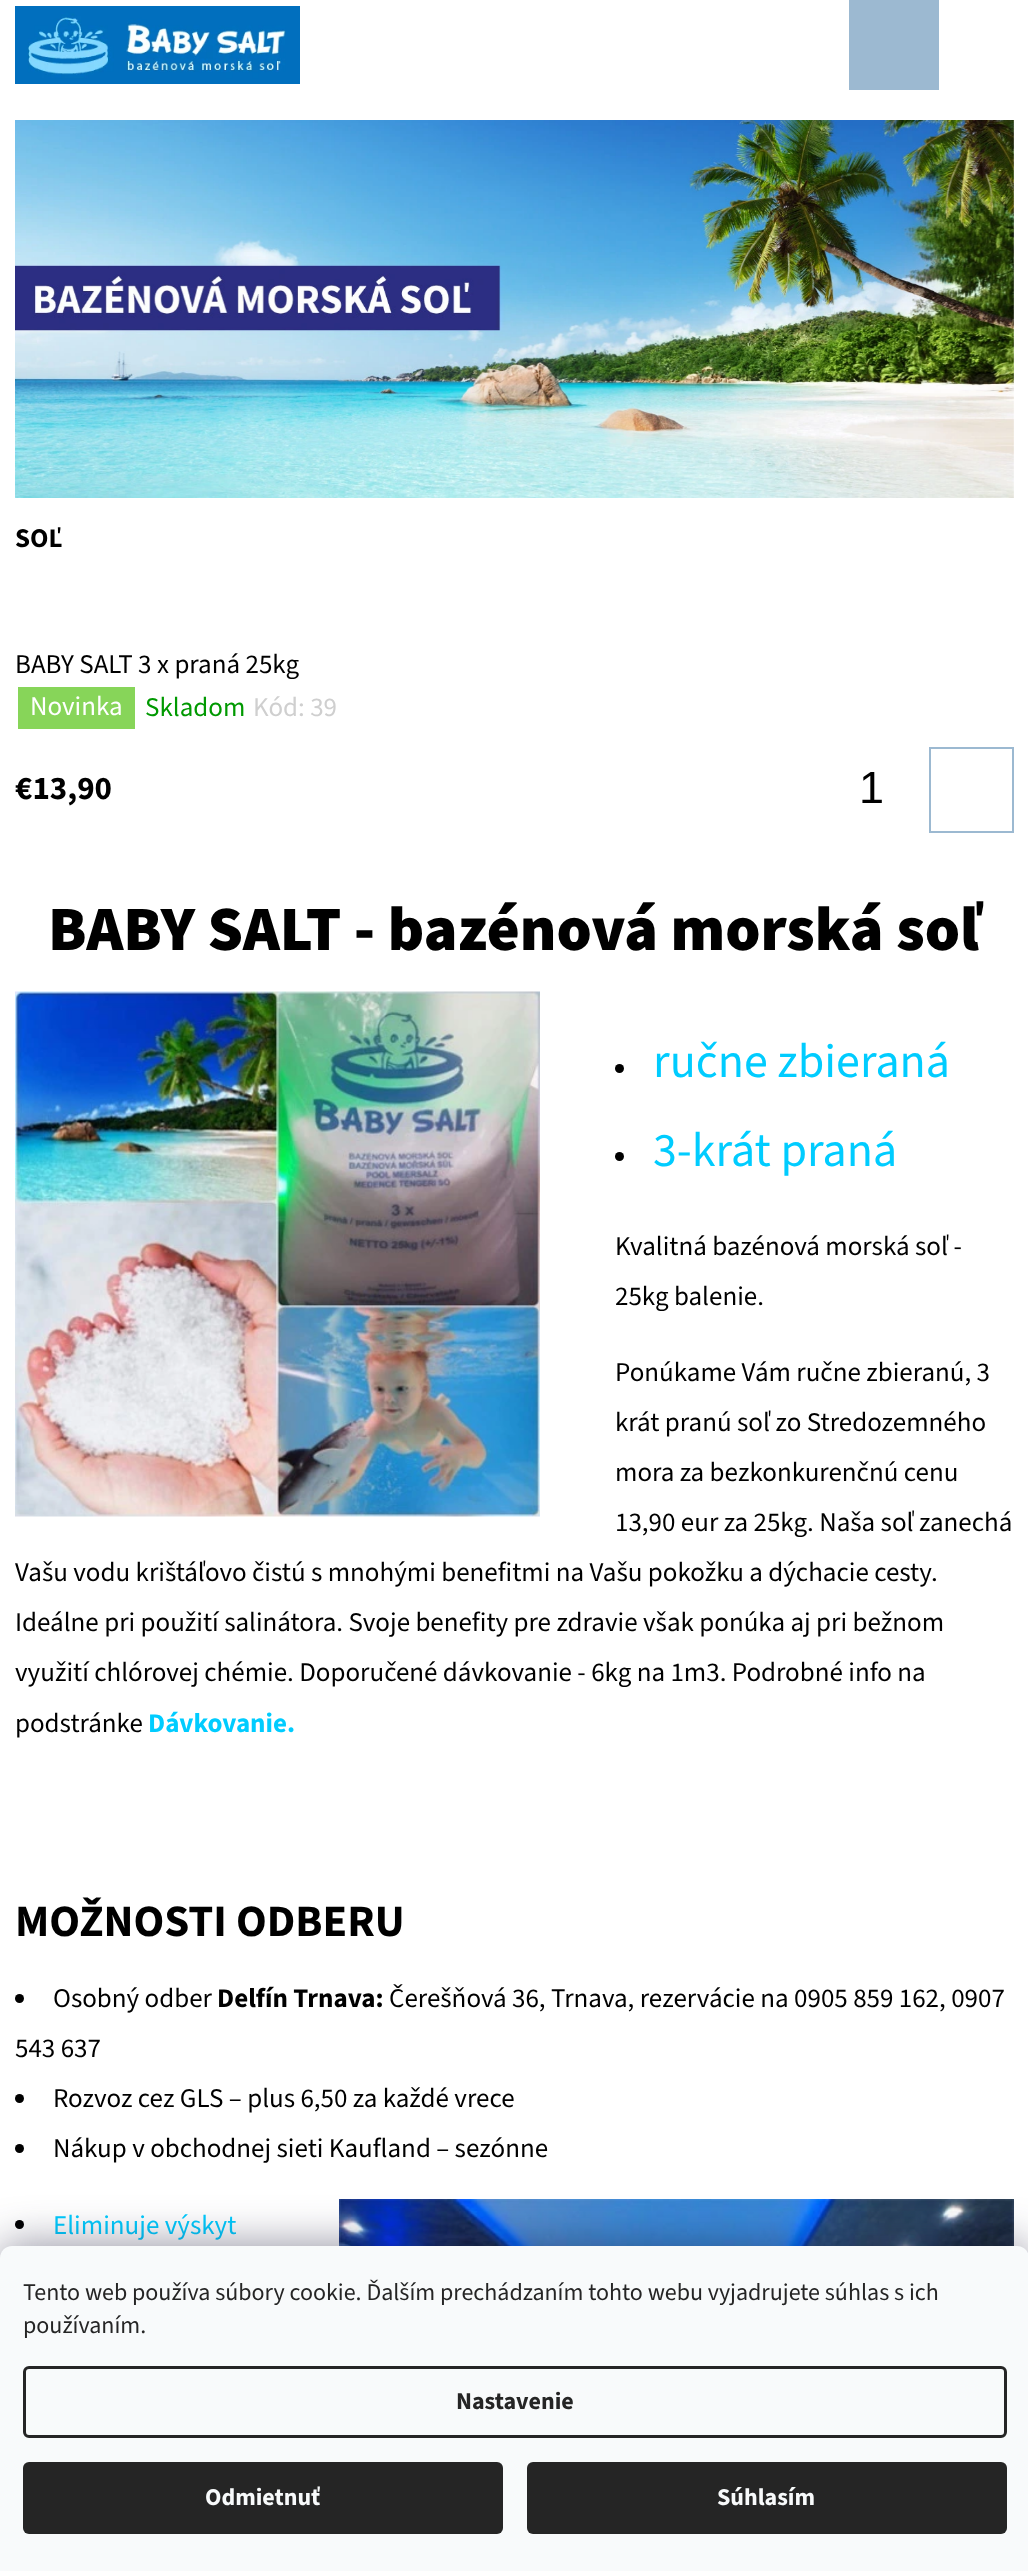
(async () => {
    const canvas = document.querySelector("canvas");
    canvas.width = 1028;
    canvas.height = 2571;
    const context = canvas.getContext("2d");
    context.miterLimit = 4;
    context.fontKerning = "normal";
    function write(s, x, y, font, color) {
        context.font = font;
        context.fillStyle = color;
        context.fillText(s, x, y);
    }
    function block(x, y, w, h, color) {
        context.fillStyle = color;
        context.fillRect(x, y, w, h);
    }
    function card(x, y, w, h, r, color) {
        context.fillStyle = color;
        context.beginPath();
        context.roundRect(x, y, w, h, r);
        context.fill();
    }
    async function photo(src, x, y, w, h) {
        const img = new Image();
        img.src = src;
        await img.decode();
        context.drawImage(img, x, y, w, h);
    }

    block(0, 0, 1028, 2571, "rgb(255, 255, 255)");
    await photo("media/1.png", 15, 6, 285, 78);
    block(849, 0, 90, 90, "rgb(156, 185, 209)");
    await photo("media/2.png", 15, 120, 999, 378);
    write("SOĽ", 15, 547, "bold 27px 'Source Sans 3'", "rgb(0, 0, 0)");
    write("BABY SALT 3 x praná 25kg", 15, 673, "27px 'Source Sans 3'", "rgb(0, 0, 0)");
    block(18, 687, 117, 42, "rgb(135, 213, 89)");
    write("Novinka", 30, 715, "27px 'Source Sans 3'", "rgb(255, 255, 255)");
    write("Skladom", 145, 716, "27px 'Source Sans 3'", "rgb(0, 153, 1)");
    write("Kód: 39", 253, 716, "27px 'Source Sans 3'", "rgb(207, 207, 207)");
    write("€13,90", 15, 799, "bold 33px 'Source Sans 3'", "rgb(0, 0, 0)");
    write("1", 859, 803, "45px Liberation Sans", "rgb(0, 0, 0)");
    context.strokeStyle = "rgb(156, 185, 209)";
    context.lineWidth = 2;
    context.strokeRect(930, 748, 83, 84);
    write("BABY SALT - bazénová morská soľ", 48, 950, "900 63px 'Source Sans 3'", "rgb(0, 0, 0)");
    await photo("media/3.png", 15, 991, 525, 526);
    context.beginPath();
    context.arc(619.5, 1068.5, 4.5, 0, Math.PI * 2);
    context.fill();
    write("ručne zbieraná", 653, 1077, "48px 'Source Sans 3'", "rgb(0, 204, 255)");
    context.fillStyle = "rgb(0, 0, 0)";
    context.beginPath();
    context.arc(619.5, 1156.5, 4.5, 0, Math.PI * 2);
    context.fill();
    write("3-krát praná", 653, 1166, "48px 'Source Sans 3'", "rgb(0, 204, 255)");
    write("Kvalitná bazénová morská soľ -", 615, 1255, "27px 'Source Sans 3'", "rgb(0, 0, 0)");
    write("25kg balenie.", 615, 1305, "27px 'Source Sans 3'", "rgb(0, 0, 0)");
    write("Ponúkame Vám ručne zbieranú, 3", 615, 1381, "27px 'Source Sans 3'", "rgb(0, 0, 0)");
    write("krát pranú soľ zo Stredozemného", 615, 1431, "27px 'Source Sans 3'", "rgb(0, 0, 0)");
    write("mora za bezkonkurenčnú cenu", 615, 1481, "27px 'Source Sans 3'", "rgb(0, 0, 0)");
    write("13,90 eur za 25kg. Naša soľ zanechá", 615, 1531, "27px 'Source Sans 3'", "rgb(0, 0, 0)");
    write("Vašu vodu krištáľovo čistú s mnohými benefitmi na Vašu pokožku a dýchacie cesty.", 15, 1581, "27px 'Source Sans 3'", "rgb(0, 0, 0)");
    write("Ideálne pri použití salinátora. Svoje benefity pre zdravie však ponúka aj pri bežnom", 15, 1631, "27px 'Source Sans 3'", "rgb(0, 0, 0)");
    write("využití chlórovej chémie. Doporučené dávkovanie - 6kg na 1m3. Podrobné info na", 15, 1681, "27px 'Source Sans 3'", "rgb(0, 0, 0)");
    write("podstránke", 15, 1732, "27px 'Source Sans 3'", "rgb(0, 0, 0)");
    write("Dávkovanie.", 148, 1732, "bold 27px 'Source Sans 3'", "rgb(0, 204, 255)");
    write("MOŽNOSTI ODBERU", 15, 1936, "bold 45px 'Source Sans 3'", "rgb(0, 0, 0)");
    context.beginPath();
    context.arc(19.5, 1998.5, 4.5, 0, Math.PI * 2);
    context.fill();
    write("Osobný odber", 53, 2007, "27px 'Source Sans 3'", "rgb(0, 0, 0)");
    write("Delfín Trnava:", 217, 2007, "bold 27px 'Source Sans 3'", "rgb(0, 0, 0)");
    write("Čerešňová 36, Trnava, rezervácie na 0905 859 162, 0907", 389, 2007, "27px 'Source Sans 3'", "rgb(0, 0, 0)");
    write("543 637", 15, 2057, "27px 'Source Sans 3'", "rgb(0, 0, 0)");
    context.beginPath();
    context.arc(19.5, 2098.5, 4.5, 0, Math.PI * 2);
    context.fill();
    write("Rozvoz cez GLS – plus 6,50 za každé vrece", 53, 2107, "27px 'Source Sans 3'", "rgb(0, 0, 0)");
    context.beginPath();
    context.arc(19.5, 2148.5, 4.5, 0, Math.PI * 2);
    context.fill();
    write("Nákup v obchodnej sieti Kaufland – sezónne", 53, 2157, "27px 'Source Sans 3'", "rgb(0, 0, 0)");
    context.beginPath();
    context.arc(19.5, 2224.5, 4.5, 0, Math.PI * 2);
    context.fill();
    write("Eliminuje výskyt", 53, 2234, "27px 'Source Sans 3'", "rgb(0, 204, 255)");
    await photo("media/4.png", 339, 2199, 675, 47);
    context.fillStyle = "rgba(27, 25, 57, 0.5)";
    context.filter = "blur(22.5px)";
    context.beginPath();
    context.roundRect(0, 2246, 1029, 325, 12);
    context.fill();
    context.filter = "none";
    context.fillStyle = "rgb(248, 250, 251)";
    context.beginPath();
    context.moveTo(12, 2246);
    context.lineTo(1017, 2246);
    context.bezierCurveTo(1023.5, 2246, 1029, 2251.5, 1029, 2258);
    context.lineTo(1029, 2571);
    context.lineTo(0, 2571);
    context.lineTo(0, 2258);
    context.bezierCurveTo(0, 2251.5, 5.5, 2246, 12, 2246);
    context.closePath();
    context.fill();
    write("Tento web používa súbory cookie. Ďalším prechádzaním tohto webu vyjadrujete súhlas s ich", 23, 2300, "24px 'Source Sans 3'", "rgb(37, 37, 37)");
    write("používaním.", 23, 2333, "24px 'Source Sans 3'", "rgb(37, 37, 37)");
    context.beginPath();
    context.roundRect(24.5, 2367.5, 981, 69, 4.5);
    context.strokeStyle = "rgb(37, 37, 37)";
    context.lineWidth = 3;
    context.stroke();
    write("Nastavenie", 456, 2409, "bold 24px 'Source Sans 3'", "rgb(37, 37, 37)");
    card(23, 2462, 480, 72, 6, "rgb(37, 37, 37)");
    write("Odmietnuť", 205, 2505, "bold 24px 'Source Sans 3'", "rgb(248, 250, 251)");
    card(527, 2462, 480, 72, 6, "rgb(37, 37, 37)");
    write("Súhlasím", 717, 2505, "bold 24px 'Source Sans 3'", "rgb(248, 250, 251)");
})();
